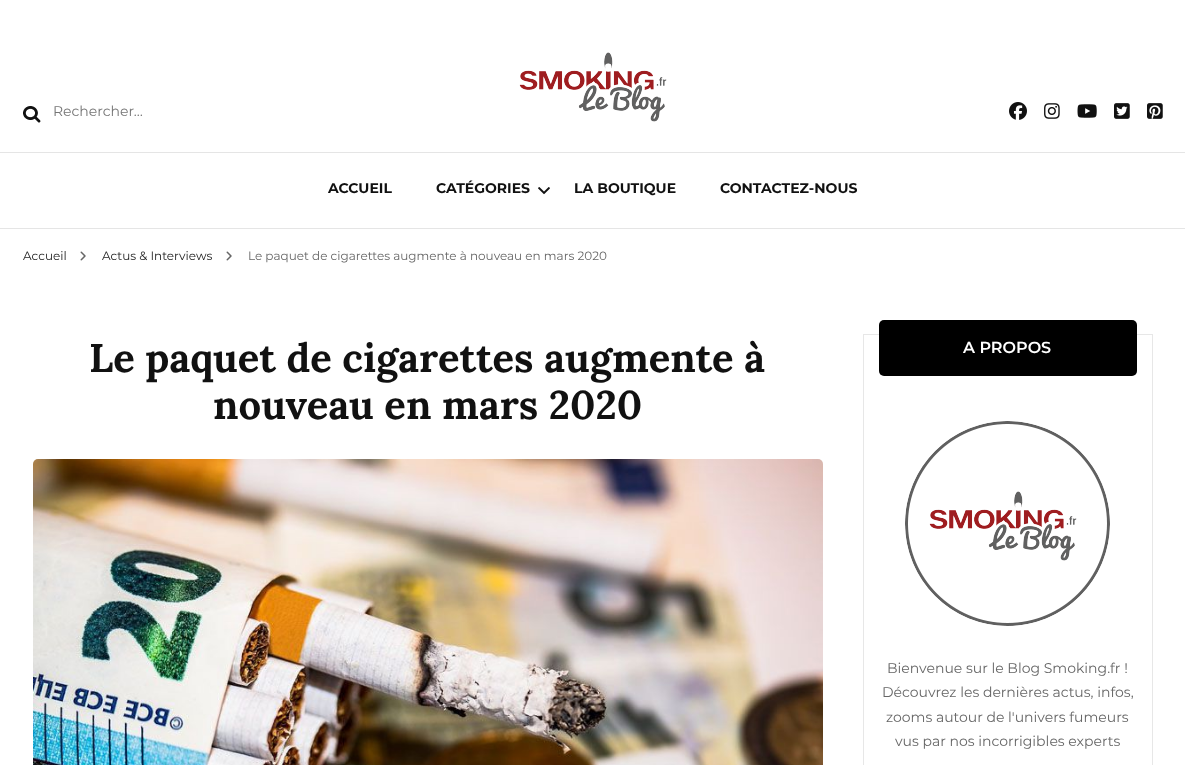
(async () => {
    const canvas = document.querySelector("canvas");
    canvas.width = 1185;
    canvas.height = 765;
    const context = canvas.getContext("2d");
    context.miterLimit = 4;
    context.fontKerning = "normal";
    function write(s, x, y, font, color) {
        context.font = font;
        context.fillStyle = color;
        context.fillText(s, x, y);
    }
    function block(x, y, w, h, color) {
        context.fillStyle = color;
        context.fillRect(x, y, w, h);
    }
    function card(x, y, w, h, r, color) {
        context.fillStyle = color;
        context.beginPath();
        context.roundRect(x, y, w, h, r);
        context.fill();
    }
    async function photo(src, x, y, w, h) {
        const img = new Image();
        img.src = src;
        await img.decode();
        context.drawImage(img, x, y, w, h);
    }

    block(0, 0, 1185, 765, "rgb(255, 255, 255)");
    await photo("media/1.png", 23, 106, 18, 17);
    write("Rechercher…", 53, 116, "14px Montserrat", "rgb(117, 117, 117)");
    await photo("media/2.png", 519, 52, 148, 70);
    await photo("media/3.png", 1009, 102, 18, 18);
    await photo("media/4.png", 1044, 103, 16, 16);
    await photo("media/5.png", 1077, 104, 20, 14);
    await photo("media/6.png", 1114, 103, 16, 16);
    await photo("media/7.png", 1147, 103, 16, 16);
    block(0, 152, 1185, 1, "rgb(229, 229, 229)");
    block(0, 228, 1185, 1, "rgb(229, 229, 229)");
    write("ACCUEIL", 328, 193, "bold 14px Montserrat", "rgb(17, 17, 17)");
    write("CATÉGORIES", 436, 193, "bold 14px Montserrat", "rgb(17, 17, 17)");
    await photo("media/8.png", 538, 187, 12, 8);
    write("LA BOUTIQUE", 574, 193, "bold 14px Montserrat", "rgb(17, 17, 17)");
    write("CONTACTEZ-NOUS", 720, 193, "bold 14px Montserrat", "rgb(17, 17, 17)");
    write("Accueil", 23, 260, "12px Montserrat", "rgb(34, 34, 34)");
    await photo("media/9.png", 80, 251, 6, 10);
    write("Actus & Interviews", 102, 260, "12px Montserrat", "rgb(34, 34, 34)");
    await photo("media/9.png", 226, 251, 6, 10);
    write("Le paquet de cigarettes augmente à nouveau en mars 2020", 248, 260, "12px Montserrat", "rgb(102, 102, 102)");
    write("Le paquet de cigarettes augmente à", 89, 372, "bold 40px Lora", "rgb(17, 17, 17)");
    write("nouveau en mars 2020", 213, 419, "bold 40px Lora", "rgb(17, 17, 17)");
    await photo("media/10.png", 33, 459, 790, 306);
    context.strokeStyle = "rgb(231, 231, 231)";
    context.strokeRect(863.5, 334.5, 289, 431);
    card(879, 320, 258, 56, 5, "rgb(0, 0, 0)");
    write("A PROPOS", 963, 353, "600 16px Montserrat", "rgb(255, 255, 255)");
    await photo("media/11.png", 905, 421, 205, 205);
    write("Bienvenue sur le Blog Smoking.fr !", 887, 673, "14px Montserrat", "rgb(102, 102, 102)");
    write("Découvrez les dernières actus, infos,", 882, 697, "14px Montserrat", "rgb(102, 102, 102)");
    write("zooms autour de l'univers fumeurs", 886, 722, "14px Montserrat", "rgb(102, 102, 102)");
    write("vus par nos incorrigibles experts", 895, 746, "14px Montserrat", "rgb(102, 102, 102)");
})();
